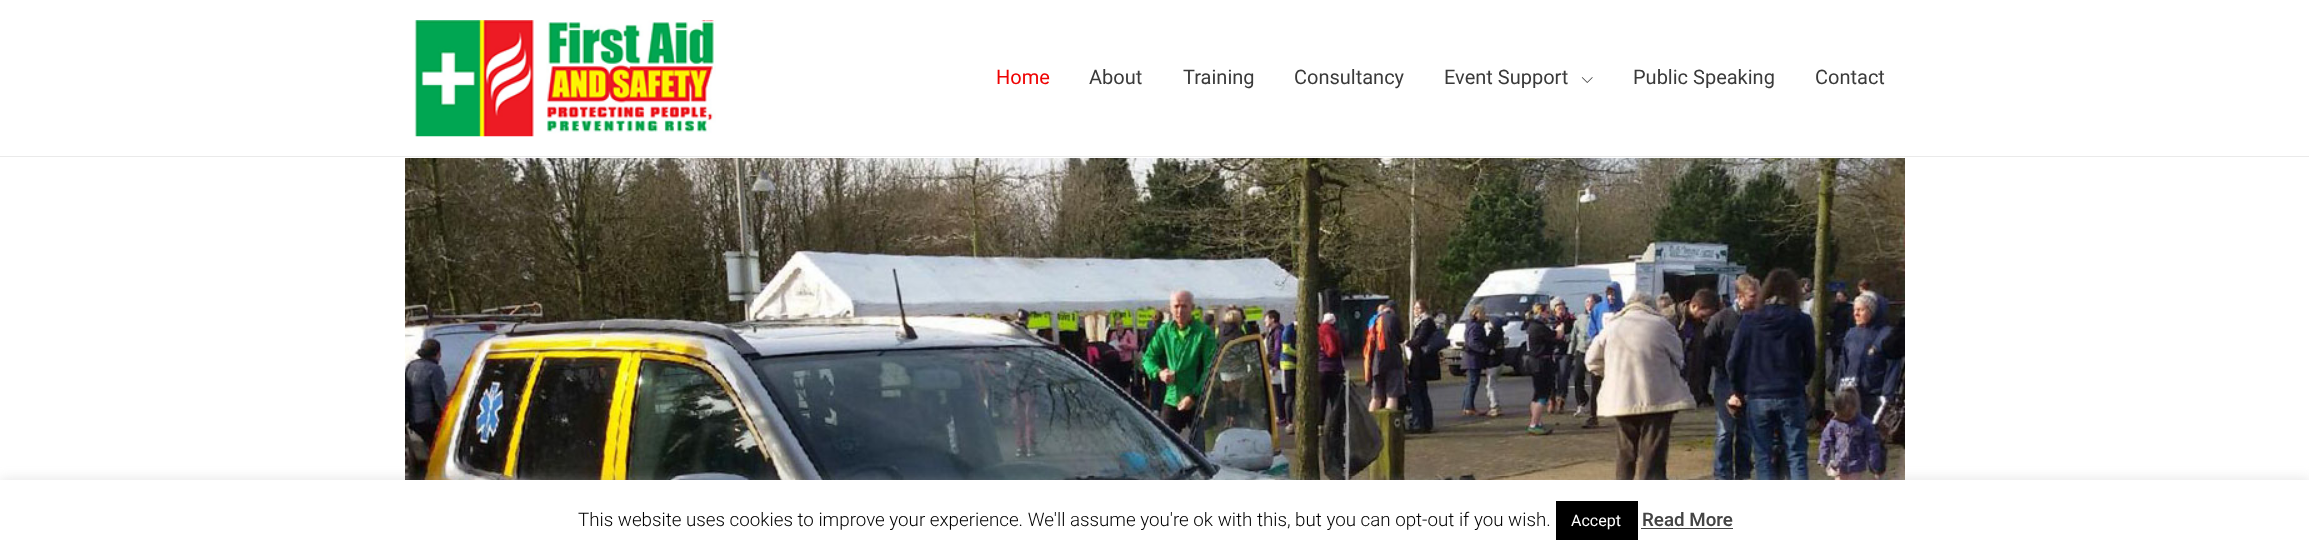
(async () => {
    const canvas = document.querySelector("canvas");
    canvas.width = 2309;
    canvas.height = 554;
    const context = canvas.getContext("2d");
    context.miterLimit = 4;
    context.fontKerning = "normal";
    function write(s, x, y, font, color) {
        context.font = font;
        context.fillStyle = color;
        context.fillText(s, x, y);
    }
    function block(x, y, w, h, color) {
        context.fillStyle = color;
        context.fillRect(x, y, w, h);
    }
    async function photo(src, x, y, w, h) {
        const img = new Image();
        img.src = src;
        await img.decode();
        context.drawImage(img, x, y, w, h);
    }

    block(0, 0, 2309, 554, "rgb(255, 255, 255)");
    block(0, 156, 2309, 1, "rgb(234, 234, 234)");
    await photo("media/1.png", 414, 20, 302, 117);
    write("Home", 996, 84, "20px Roboto", "rgb(239, 2, 2)");
    write("About", 1089, 84, "20px Roboto", "rgb(58, 58, 58)");
    write("Training", 1183, 84, "20px Roboto", "rgb(58, 58, 58)");
    write("Consultancy", 1294, 84, "20px Roboto", "rgb(58, 58, 58)");
    write("Event Support", 1444, 84, "20px Roboto", "rgb(58, 58, 58)");
    await photo("media/2.png", 1581, 77, 12, 6);
    write("Public Speaking", 1633, 84, "20px Roboto", "rgb(58, 58, 58)");
    write("Contact", 1815, 84, "20px Roboto", "rgb(58, 58, 58)");
    await photo("media/3.png", 405, 158, 1500, 322);
    context.fillStyle = "rgba(172, 171, 171, 0.3)";
    context.filter = "blur(6px)";
    context.beginPath();
    context.rect(0, 479, 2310, 75);
    context.fill();
    context.filter = "none";
    block(0, 480, 2309, 74, "rgb(255, 255, 255)");
    write("This website uses cookies to improve your experience. We'll assume you're ok with this, but you can opt-out if you wish.", 578, 526, "300 18.75px Roboto", "rgb(0, 0, 0)");
    block(1556, 501, 82, 39, "rgb(0, 0, 0)");
    write("Accept", 1571, 526, "16px Roboto", "rgb(255, 255, 255)");
    write("Read More", 1642, 526, "500 18.75px Roboto", "rgb(68, 68, 68)");
    block(1641, 528, 92, 1, "rgb(68, 68, 68)");
})();
